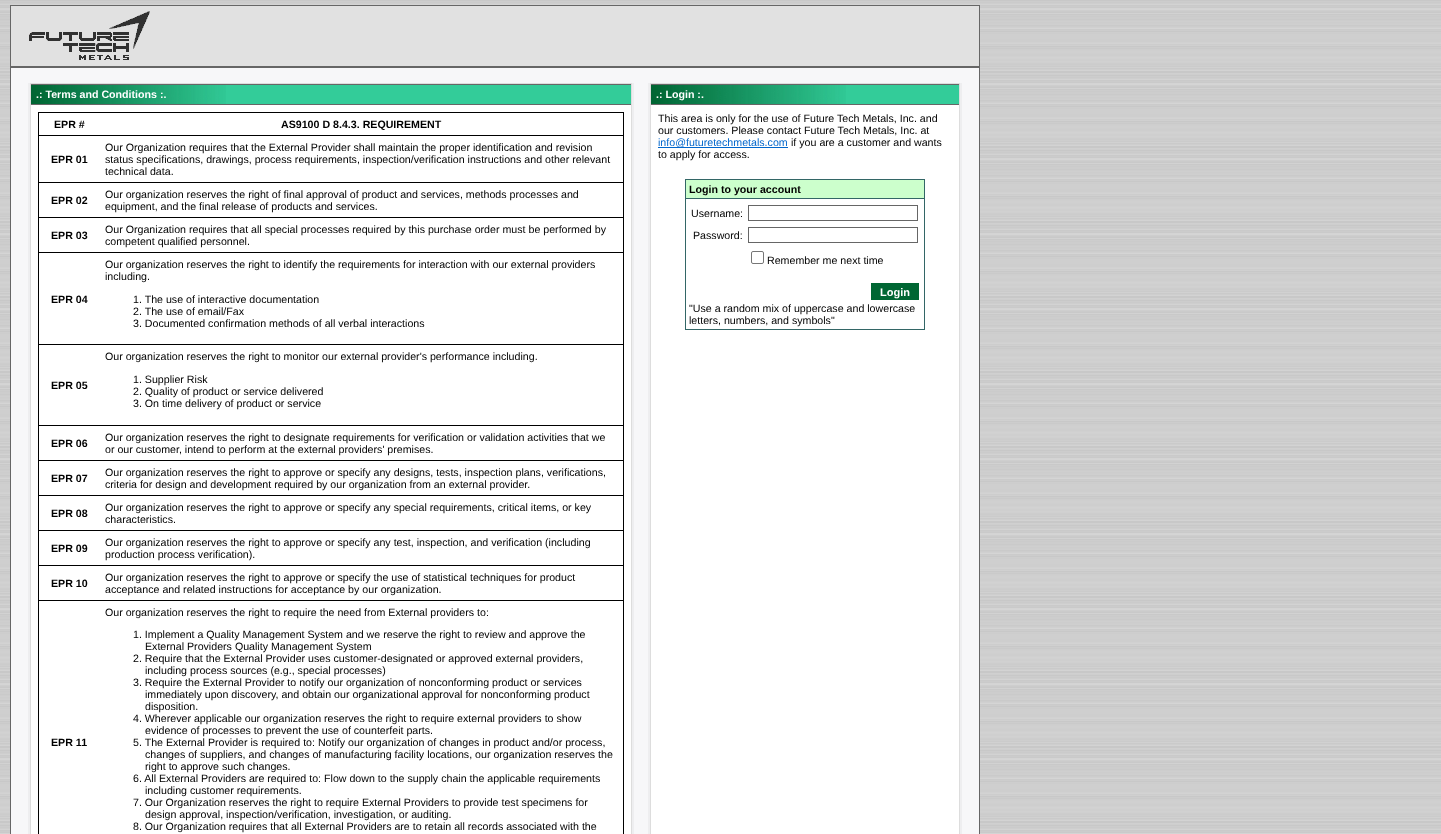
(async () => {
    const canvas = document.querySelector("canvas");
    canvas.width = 1441;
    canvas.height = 834;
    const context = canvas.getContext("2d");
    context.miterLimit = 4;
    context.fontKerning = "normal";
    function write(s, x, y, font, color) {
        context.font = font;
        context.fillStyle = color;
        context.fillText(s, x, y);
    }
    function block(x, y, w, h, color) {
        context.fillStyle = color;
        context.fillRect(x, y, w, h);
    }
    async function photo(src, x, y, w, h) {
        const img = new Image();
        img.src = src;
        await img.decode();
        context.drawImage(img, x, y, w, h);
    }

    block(0, 0, 1441, 834, "rgb(255, 255, 255)");
    await photo("media/1.png", 0, 0, 1441, 834);
    block(11, 6, 968, 60, "rgb(225, 225, 225)");
    block(10, 5, 970, 1, "rgb(102, 102, 102)");
    block(979, 5, 1, 61, "rgb(102, 102, 102)");
    block(10, 5, 1, 61, "rgb(102, 102, 102)");
    await photo("media/2.png", 29, 11, 121, 49);
    block(11, 68, 968, 766, "rgb(247, 247, 249)");
    block(10, 66, 970, 2, "rgb(102, 102, 102)");
    block(979, 66, 1, 768, "rgb(102, 102, 102)");
    block(10, 66, 1, 768, "rgb(102, 102, 102)");
    block(28, 83, 2, 751, "rgb(238, 238, 240)");
    context.strokeStyle = "rgb(221, 221, 221)";
    context.strokeRect(30.5, 83.5, 601, 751);
    block(31, 105, 600, 729, "rgb(255, 255, 255)");
    block(226, 85, 405, 19, "rgb(51, 204, 153)");
    await photo("media/3.png", 31, 85, 195, 19);
    block(31, 84, 600, 1, "rgb(102, 102, 102)");
    block(31, 104, 600, 1, "rgb(102, 102, 102)");
    write(".: Terms and Conditions :.", 36, 98, "bold 10.65px Liberation Sans", "rgb(255, 255, 255)");
    block(38, 112, 586, 722, "rgb(0, 0, 0)");
    block(39, 113, 584, 22, "rgb(255, 255, 255)");
    write("EPR #", 54, 128, "bold 10.65px Liberation Sans", "rgb(0, 0, 0)");
    write("AS9100 D 8.4.3. REQUIREMENT", 281, 128, "bold 10.65px Liberation Sans", "rgb(0, 0, 0)");
    block(39, 136, 584, 46, "rgb(255, 255, 255)");
    write("EPR 01", 51, 163, "bold 10.65px Liberation Sans", "rgb(0, 0, 0)");
    write("Our Organization requires that the External Provider shall maintain the proper identification and revision", 105, 151, "10.65px Liberation Sans", "rgb(0, 0, 0)");
    write("status specifications, drawings, process requirements, inspection/verification instructions and other relevant", 105, 163, "10.65px Liberation Sans", "rgb(0, 0, 0)");
    write("technical data.", 105, 175, "10.65px Liberation Sans", "rgb(0, 0, 0)");
    block(39, 183, 584, 34, "rgb(255, 255, 255)");
    write("EPR 02", 51, 204, "bold 10.65px Liberation Sans", "rgb(0, 0, 0)");
    write("Our organization reserves the right of final approval of product and services, methods processes and", 105, 198, "10.65px Liberation Sans", "rgb(0, 0, 0)");
    write("equipment, and the final release of products and services.", 105, 210, "10.65px Liberation Sans", "rgb(0, 0, 0)");
    block(39, 218, 584, 34, "rgb(255, 255, 255)");
    write("EPR 03", 51, 239, "bold 10.65px Liberation Sans", "rgb(0, 0, 0)");
    write("Our Organization requires that all special processes required by this purchase order must be performed by", 105, 233, "10.65px Liberation Sans", "rgb(0, 0, 0)");
    write("competent qualified personnel.", 105, 245, "10.65px Liberation Sans", "rgb(0, 0, 0)");
    block(39, 253, 584, 91, "rgb(255, 255, 255)");
    write("EPR 04", 51, 303, "bold 10.65px Liberation Sans", "rgb(0, 0, 0)");
    write("Our organization reserves the right to identify the requirements for interaction with our external providers", 105, 268, "10.65px Liberation Sans", "rgb(0, 0, 0)");
    write("including.", 105, 280, "10.65px Liberation Sans", "rgb(0, 0, 0)");
    write("1. The use of interactive documentation", 133, 303, "10.65px Liberation Sans", "rgb(0, 0, 0)");
    write("2. The use of email/Fax", 133, 315, "10.65px Liberation Sans", "rgb(0, 0, 0)");
    write("3. Documented confirmation methods of all verbal interactions", 133, 327, "10.65px Liberation Sans", "rgb(0, 0, 0)");
    block(39, 345, 584, 80, "rgb(255, 255, 255)");
    write("EPR 05", 51, 389, "bold 10.65px Liberation Sans", "rgb(0, 0, 0)");
    write("Our organization reserves the right to monitor our external provider's performance including.", 105, 360, "10.65px Liberation Sans", "rgb(0, 0, 0)");
    write("1. Supplier Risk", 133, 383, "10.65px Liberation Sans", "rgb(0, 0, 0)");
    write("2. Quality of product or service delivered", 133, 395, "10.65px Liberation Sans", "rgb(0, 0, 0)");
    write("3. On time delivery of product or service", 133, 407, "10.65px Liberation Sans", "rgb(0, 0, 0)");
    block(39, 426, 584, 34, "rgb(255, 255, 255)");
    write("EPR 06", 51, 447, "bold 10.65px Liberation Sans", "rgb(0, 0, 0)");
    write("Our organization reserves the right to designate requirements for verification or validation activities that we", 105, 441, "10.65px Liberation Sans", "rgb(0, 0, 0)");
    write("or our customer, intend to perform at the external providers' premises.", 105, 453, "10.65px Liberation Sans", "rgb(0, 0, 0)");
    block(39, 461, 584, 34, "rgb(255, 255, 255)");
    write("EPR 07", 51, 482, "bold 10.65px Liberation Sans", "rgb(0, 0, 0)");
    write("Our organization reserves the right to approve or specify any designs, tests, inspection plans, verifications,", 105, 476, "10.65px Liberation Sans", "rgb(0, 0, 0)");
    write("criteria for design and development required by our organization from an external provider.", 105, 488, "10.65px Liberation Sans", "rgb(0, 0, 0)");
    block(39, 496, 584, 34, "rgb(255, 255, 255)");
    write("EPR 08", 51, 517, "bold 10.65px Liberation Sans", "rgb(0, 0, 0)");
    write("Our organization reserves the right to approve or specify any special requirements, critical items, or key", 105, 511, "10.65px Liberation Sans", "rgb(0, 0, 0)");
    write("characteristics.", 105, 523, "10.65px Liberation Sans", "rgb(0, 0, 0)");
    block(39, 531, 584, 34, "rgb(255, 255, 255)");
    write("EPR 09", 51, 552, "bold 10.65px Liberation Sans", "rgb(0, 0, 0)");
    write("Our organization reserves the right to approve or specify any test, inspection, and verification (including", 105, 546, "10.65px Liberation Sans", "rgb(0, 0, 0)");
    write("production process verification).", 105, 558, "10.65px Liberation Sans", "rgb(0, 0, 0)");
    block(39, 566, 584, 34, "rgb(255, 255, 255)");
    write("EPR 10", 51, 587, "bold 10.65px Liberation Sans", "rgb(0, 0, 0)");
    write("Our organization reserves the right to approve or specify the use of statistical techniques for product", 105, 581, "10.65px Liberation Sans", "rgb(0, 0, 0)");
    write("acceptance and related instructions for acceptance by our organization.", 105, 593, "10.65px Liberation Sans", "rgb(0, 0, 0)");
    block(39, 601, 584, 233, "rgb(255, 255, 255)");
    write("EPR 11", 51, 746, "bold 10.65px Liberation Sans", "rgb(0, 0, 0)");
    write("Our organization reserves the right to require the need from External providers to:", 105, 616, "10.65px Liberation Sans", "rgb(0, 0, 0)");
    write("1. Implement a Quality Management System and we reserve the right to review and approve the", 133, 638, "10.65px Liberation Sans", "rgb(0, 0, 0)");
    write("External Providers Quality Management System", 145, 650, "10.65px Liberation Sans", "rgb(0, 0, 0)");
    write("2. Require that the External Provider uses customer-designated or approved external providers,", 133, 662, "10.65px Liberation Sans", "rgb(0, 0, 0)");
    write("including process sources (e.g., special processes)", 145, 674, "10.65px Liberation Sans", "rgb(0, 0, 0)");
    write("3. Require the External Provider to notify our organization of nonconforming product or services", 133, 686, "10.65px Liberation Sans", "rgb(0, 0, 0)");
    write("immediately upon discovery, and obtain our organizational approval for nonconforming product", 145, 698, "10.65px Liberation Sans", "rgb(0, 0, 0)");
    write("disposition.", 145, 710, "10.65px Liberation Sans", "rgb(0, 0, 0)");
    write("4. Wherever applicable our organization reserves the right to require external providers to show", 133, 722, "10.65px Liberation Sans", "rgb(0, 0, 0)");
    write("evidence of processes to prevent the use of counterfeit parts.", 145, 734, "10.65px Liberation Sans", "rgb(0, 0, 0)");
    write("5. The External Provider is required to: Notify our organization of changes in product and/or process,", 133, 746, "10.65px Liberation Sans", "rgb(0, 0, 0)");
    write("changes of suppliers, and changes of manufacturing facility locations, our organization reserves the", 145, 758, "10.65px Liberation Sans", "rgb(0, 0, 0)");
    write("right to approve such changes.", 145, 770, "10.65px Liberation Sans", "rgb(0, 0, 0)");
    write("6. All External Providers are required to: Flow down to the supply chain the applicable requirements", 133, 782, "10.65px Liberation Sans", "rgb(0, 0, 0)");
    write("including customer requirements.", 145, 794, "10.65px Liberation Sans", "rgb(0, 0, 0)");
    write("7. Our Organization reserves the right to require External Providers to provide test specimens for", 133, 806, "10.65px Liberation Sans", "rgb(0, 0, 0)");
    write("design approval, inspection/verification, investigation, or auditing.", 145, 818, "10.65px Liberation Sans", "rgb(0, 0, 0)");
    write("8. Our Organization requires that all External Providers are to retain all records associated with the", 133, 830, "10.65px Liberation Sans", "rgb(0, 0, 0)");
    block(632, 83, 2, 751, "rgb(238, 238, 240)");
    block(648, 83, 2, 751, "rgb(238, 238, 240)");
    context.strokeRect(650.5, 83.5, 309, 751);
    block(651, 105, 308, 729, "rgb(255, 255, 255)");
    block(846, 85, 113, 19, "rgb(51, 204, 153)");
    await photo("media/3.png", 651, 85, 195, 19);
    block(651, 84, 308, 1, "rgb(102, 102, 102)");
    block(651, 104, 308, 1, "rgb(102, 102, 102)");
    write(".: Login :.", 656, 98, "bold 10.65px Liberation Sans", "rgb(255, 255, 255)");
    write("This area is only for the use of Future Tech Metals, Inc. and", 658, 122, "10.65px Liberation Sans", "rgb(0, 0, 0)");
    write("our customers. Please contact Future Tech Metals, Inc. at", 658, 134, "10.65px Liberation Sans", "rgb(0, 0, 0)");
    block(658, 147, 130, 1, "rgb(0, 102, 204)");
    write("info@futuretechmetals.com", 658, 146, "10.65px Liberation Sans", "rgb(0, 102, 204)");
    write("if you are a customer and wants", 791, 146, "10.65px Liberation Sans", "rgb(0, 0, 0)");
    write("to apply for access.", 658, 158, "10.65px Liberation Sans", "rgb(0, 0, 0)");
    block(685, 179, 240, 151, "rgb(51, 102, 102)");
    block(686, 180, 238, 18, "rgb(204, 255, 204)");
    write("Login to your account", 689, 193, "bold 10.65px Liberation Sans", "rgb(0, 0, 0)");
    block(686, 199, 238, 130, "rgb(255, 255, 255)");
    write("Username:", 691, 217, "10.65px Liberation Sans", "rgb(0, 0, 0)");
    context.strokeStyle = "rgb(102, 102, 102)";
    context.strokeRect(748.5, 205.5, 169, 15);
    write("Password:", 693, 239, "10.65px Liberation Sans", "rgb(0, 0, 0)");
    context.strokeRect(748.5, 227.5, 169, 15);
    context.beginPath();
    context.roundRect(751.5, 251.5, 12, 12, 1.5);
    context.strokeStyle = "rgb(118, 118, 118)";
    context.stroke();
    write("Remember me next time", 767, 264, "10.65px Liberation Sans", "rgb(0, 0, 0)");
    block(871, 283, 48, 17, "rgb(0, 102, 51)");
    write("Login", 880, 296, "bold 11px Liberation Sans", "rgb(255, 255, 255)");
    write("\"Use a random mix of uppercase and lowercase", 689, 312, "10.65px Liberation Sans", "rgb(0, 0, 0)");
    write("letters, numbers, and symbols\"", 689, 324, "10.65px Liberation Sans", "rgb(0, 0, 0)");
    block(960, 83, 2, 751, "rgb(238, 238, 240)");
})();
